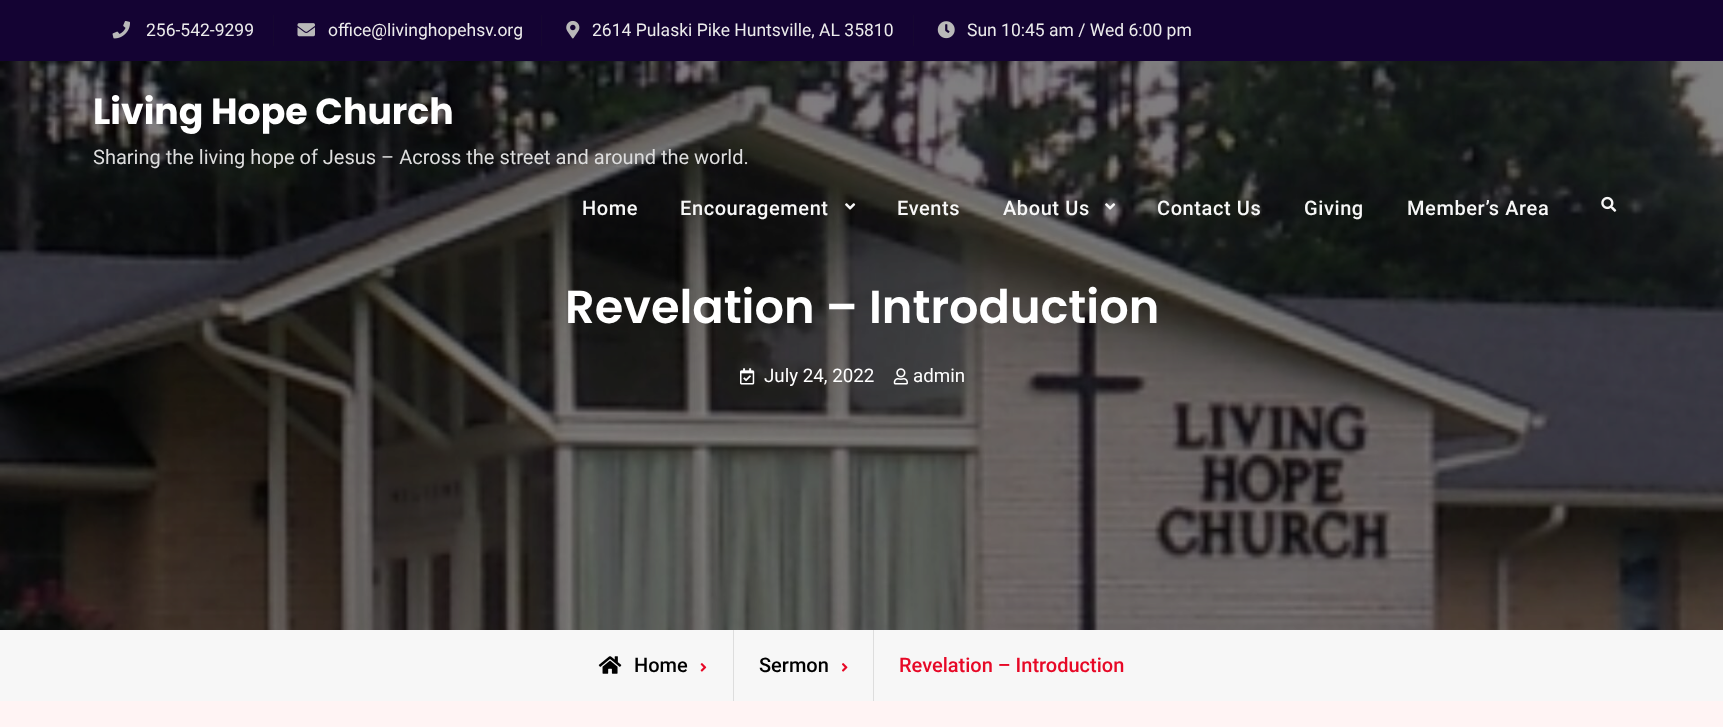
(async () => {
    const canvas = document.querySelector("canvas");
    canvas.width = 1723;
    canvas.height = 727;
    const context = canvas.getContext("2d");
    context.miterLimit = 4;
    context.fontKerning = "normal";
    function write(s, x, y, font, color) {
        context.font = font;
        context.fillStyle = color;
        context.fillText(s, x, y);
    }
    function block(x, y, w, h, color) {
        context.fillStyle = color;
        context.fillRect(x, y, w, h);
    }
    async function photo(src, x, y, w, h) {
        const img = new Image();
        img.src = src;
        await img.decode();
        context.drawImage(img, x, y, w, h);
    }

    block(0, 0, 1723, 727, "rgb(255, 244, 244)");
    block(0, 0, 1723, 61, "rgb(20, 3, 51)");
    block(273, 15, 1, 31, "rgb(22, 7, 49)");
    await photo("media/1.png", 112, 21, 18, 18);
    write("256-542-9299", 146, 36, "17.5px Roboto", "rgb(236, 236, 236)");
    block(541, 15, 1, 31, "rgb(22, 7, 49)");
    await photo("media/2.png", 297, 23, 18, 14);
    write("office@livinghopehsv.org", 328, 36, "17.5px Roboto", "rgb(236, 236, 236)");
    block(913, 15, 1, 31, "rgb(22, 7, 49)");
    await photo("media/3.png", 566, 20, 14, 19);
    write("2614 Pulaski Pike Huntsville, AL 35810", 592, 36, "17.5px Roboto", "rgb(236, 236, 236)");
    await photo("media/4.png", 937, 21, 18, 18);
    write("Sun 10:45 am / Wed 6:00 pm", 967, 36, "17.5px Roboto", "rgb(236, 236, 236)");
    await photo("media/8.png", 0, 61, 1723, 569);
    write("Living Hope Church", 93, 124, "bold 36.25px Poppins", "rgb(255, 255, 255)");
    write("Sharing the living hope of Jesus – Across the street and around the world.", 93, 164, "20px Roboto", "rgb(221, 221, 221)");
    context.letterSpacing = "0.6px";
    write("Home", 582, 215, "500 20px Roboto", "rgb(247, 247, 247)");
    write("Encouragement", 680, 215, "500 20px Roboto", "rgb(247, 247, 247)");
    await photo("media/5.png", 845, 203, 11, 7);
    write("Events", 897, 215, "500 20px Roboto", "rgb(247, 247, 247)");
    write("About Us", 1003, 215, "500 20px Roboto", "rgb(247, 247, 247)");
    await photo("media/6.png", 1105, 203, 11, 7);
    write("Contact Us", 1157, 215, "500 20px Roboto", "rgb(247, 247, 247)");
    write("Giving", 1304, 215, "500 20px Roboto", "rgb(247, 247, 247)");
    write("Member’s Area", 1407, 215, "500 20px Roboto", "rgb(247, 247, 247)");
    await photo("media/7.png", 1601, 196, 16, 16);
    context.letterSpacing = "0px";
    write("Revelation – Introduction", 565, 323, "600 46.25px Poppins", "rgb(255, 255, 255)");
    await photo("media/9.png", 740, 368, 15, 17);
    write("July 24, 2022", 764, 382, "18.75px Roboto", "rgb(255, 255, 255)");
    await photo("media/10.png", 893, 368, 15, 17);
    write("admin", 913, 382, "18.75px Roboto", "rgb(255, 255, 255)");
    block(0, 630, 1723, 71, "rgb(247, 247, 247)");
    block(733, 630, 1, 71, "rgb(221, 221, 221)");
    await photo("media/11.png", 598, 656, 24, 18);
    write("Home", 634, 672, "500 20px Roboto", "rgb(0, 0, 0)");
    await photo("media/12.png", 700, 663, 7, 9);
    block(873, 630, 1, 71, "rgb(221, 221, 221)");
    write("Sermon", 759, 672, "500 20px Roboto", "rgb(0, 0, 0)");
    await photo("media/13.png", 842, 663, 6, 9);
    write("Revelation – Introduction", 899, 672, "500 20px Roboto", "rgb(231, 8, 38)");
})();
